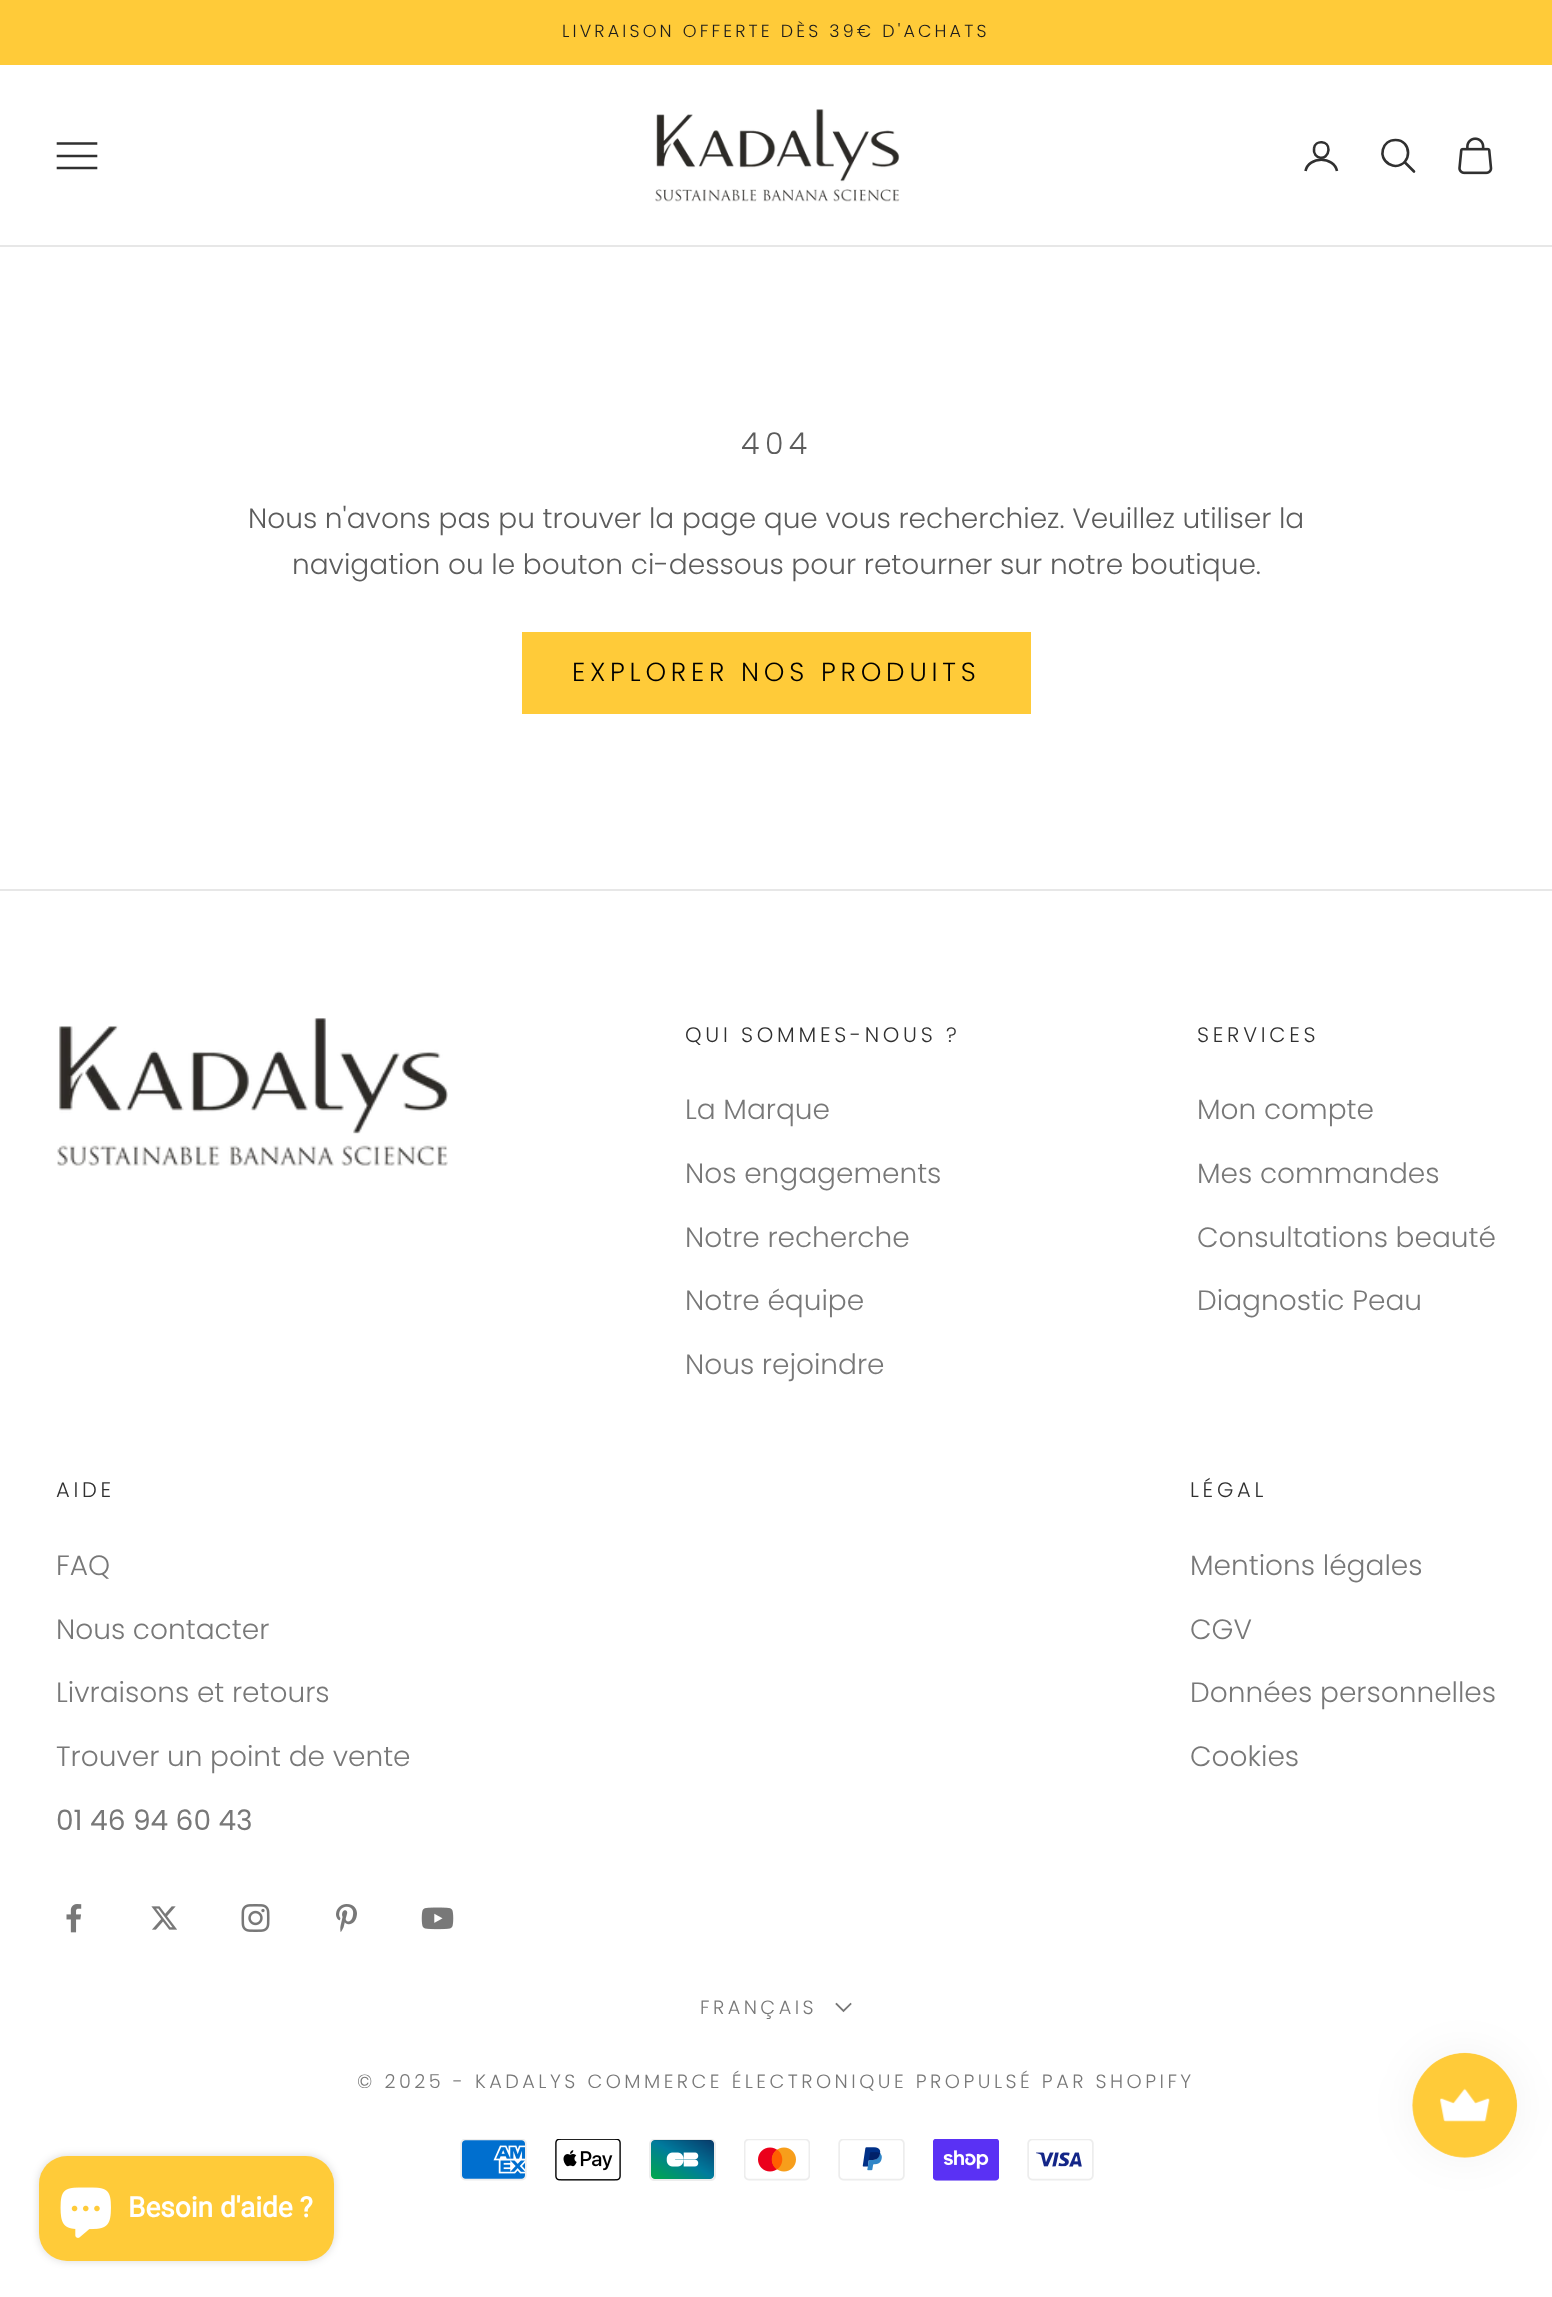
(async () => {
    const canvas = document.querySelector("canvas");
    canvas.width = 1552;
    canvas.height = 2297;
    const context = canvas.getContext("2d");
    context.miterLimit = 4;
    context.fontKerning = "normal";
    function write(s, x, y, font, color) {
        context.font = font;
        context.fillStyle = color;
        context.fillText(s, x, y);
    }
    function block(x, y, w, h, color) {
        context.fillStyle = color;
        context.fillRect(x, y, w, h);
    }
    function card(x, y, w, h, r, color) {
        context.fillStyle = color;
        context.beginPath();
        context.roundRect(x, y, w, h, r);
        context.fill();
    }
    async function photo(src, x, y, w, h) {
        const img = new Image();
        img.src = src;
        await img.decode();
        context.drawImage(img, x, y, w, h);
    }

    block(0, 0, 1552, 2297, "rgb(255, 255, 255)");
    block(0, 0, 1552, 65, "rgb(255, 203, 57)");
    context.letterSpacing = "3.15px";
    write("LIVRAISON OFFERTE DÈS 39€ D'ACHATS", 562, 37, "300 17.5px Poppins", "rgb(28, 28, 28)");
    block(0, 245, 1552, 2, "rgb(231, 231, 231)");
    context.beginPath();
    context.moveTo(58, 168);
    context.lineTo(96, 168);
    context.moveTo(58, 156);
    context.lineTo(96, 156);
    context.moveTo(58, 143.5);
    context.lineTo(96, 143.5);
    context.strokeStyle = "rgb(48, 48, 48)";
    context.lineWidth = 2.6;
    context.lineCap = "square";
    context.stroke();
    await photo("media/1.png", 655, 109, 245, 93);
    context.beginPath();
    context.moveTo(1328.5, 150);
    context.bezierCurveTo(1327.5, 161.5, 1312.5, 159.5, 1314, 148.5);
    context.bezierCurveTo(1315, 139.5, 1329, 140.5, 1328.5, 150);
    context.closePath();
    context.lineCap = "round";
    context.lineJoin = "round";
    context.stroke();
    context.beginPath();
    context.moveTo(1305.5, 171);
    context.bezierCurveTo(1308.5, 156, 1334, 156, 1337, 171);
    context.lineCap = "butt";
    context.lineJoin = "miter";
    context.stroke();
    context.beginPath();
    context.moveTo(1395.5, 140);
    context.bezierCurveTo(1382, 140, 1377.5, 157.5, 1389, 164);
    context.bezierCurveTo(1391, 165, 1393, 166, 1395.5, 166);
    context.bezierCurveTo(1412.5, 165, 1412, 140, 1395.5, 140);
    context.closePath();
    context.stroke();
    context.beginPath();
    context.moveTo(1405, 162.5);
    context.lineTo(1414, 171.5);
    context.lineCap = "round";
    context.stroke();
    await photo("media/2.png", 1458, 137, 35, 38);
    context.letterSpacing = "5.5px";
    write("404", 741, 454, "300 30px Poppins", "rgb(92, 92, 92)");
    context.letterSpacing = "0px";
    write("Nous n'avons pas pu trouver la page que vous recherchiez. Veuillez utiliser la", 248, 528, "300 28px Poppins", "rgb(92, 92, 92)");
    write("navigation ou le bouton ci-dessous pour retourner sur notre boutique.", 292, 574, "300 28px Poppins", "rgb(92, 92, 92)");
    context.fillStyle = "rgb(255, 203, 57)";
    context.beginPath();
    context.rect(523, 633, 507, 80);
    context.fill();
    context.strokeStyle = "rgb(255, 203, 57)";
    context.lineWidth = 2;
    context.stroke();
    context.letterSpacing = "4.75px";
    write("EXPLORER NOS PRODUITS", 572, 681, "300 26.25px Poppins", "rgb(0, 0, 0)");
    block(0, 889, 1552, 2, "rgb(231, 231, 231)");
    await photo("media/3.png", 57, 1018, 391, 148);
    context.letterSpacing = "3.75px";
    write("QUI SOMMES-NOUS ?", 685, 1042, "300 21px Poppins", "rgb(48, 48, 48)");
    context.letterSpacing = "0px";
    write("La Marque", 685, 1119, "300 28px Poppins", "rgb(120, 120, 120)");
    write("Nos engagements", 685, 1183, "300 28px Poppins", "rgb(120, 120, 120)");
    write("Notre recherche", 685, 1247, "300 28px Poppins", "rgb(120, 120, 120)");
    write("Notre équipe", 685, 1310, "300 28px Poppins", "rgb(120, 120, 120)");
    write("Nous rejoindre", 685, 1374, "300 28px Poppins", "rgb(120, 120, 120)");
    context.letterSpacing = "3.75px";
    write("SERVICES", 1197, 1042, "300 21px Poppins", "rgb(48, 48, 48)");
    context.letterSpacing = "0px";
    write("Mon compte", 1197, 1119, "300 28px Poppins", "rgb(120, 120, 120)");
    write("Mes commandes", 1197, 1183, "300 28px Poppins", "rgb(120, 120, 120)");
    write("Consultations beauté", 1197, 1247, "300 28px Poppins", "rgb(120, 120, 120)");
    write("Diagnostic Peau", 1197, 1310, "300 28px Poppins", "rgb(120, 120, 120)");
    context.letterSpacing = "3.75px";
    write("AIDE", 56, 1497, "300 21px Poppins", "rgb(48, 48, 48)");
    context.letterSpacing = "0px";
    write("FAQ", 56, 1575, "300 28px Poppins", "rgb(120, 120, 120)");
    write("Nous contacter", 56, 1639, "300 28px Poppins", "rgb(120, 120, 120)");
    write("Livraisons et retours", 56, 1702, "300 28px Poppins", "rgb(120, 120, 120)");
    write("Trouver un point de vente", 56, 1766, "300 28px Poppins", "rgb(120, 120, 120)");
    write("01 46 94 60 43", 56, 1830, "28px Poppins", "rgb(120, 120, 120)");
    context.letterSpacing = "3.75px";
    write("LÉGAL", 1190, 1497, "300 21px Poppins", "rgb(48, 48, 48)");
    context.letterSpacing = "0px";
    write("Mentions légales", 1190, 1575, "300 28px Poppins", "rgb(120, 120, 120)");
    write("CGV", 1190, 1639, "300 28px Poppins", "rgb(120, 120, 120)");
    write("Données personnelles", 1190, 1702, "300 28px Poppins", "rgb(120, 120, 120)");
    write("Cookies", 1190, 1766, "300 28px Poppins", "rgb(120, 120, 120)");
    await photo("media/4.png", 66, 1904, 16, 29);
    await photo("media/5.png", 151, 1906, 26, 24);
    await photo("media/6.png", 241, 1904, 29, 28);
    await photo("media/7.png", 336, 1904, 21, 28);
    await photo("media/8.png", 421, 1907, 33, 23);
    context.letterSpacing = "3.45px";
    write("FRANÇAIS", 700, 2014, "300 19.25px Poppins", "rgb(120, 120, 120)");
    context.beginPath();
    context.moveTo(836.5, 2004);
    context.lineTo(843.5, 2011);
    context.lineTo(850.5, 2004);
    context.strokeStyle = "rgb(120, 120, 120)";
    context.lineWidth = 1.8;
    context.lineCap = "square";
    context.stroke();
    write("© 2025 - KADALYS COMMERCE ÉLECTRONIQUE PROPULSÉ PAR SHOPIFY", 357, 2088, "300 19.25px Poppins", "rgb(120, 120, 120)");
    await photo("media/9.png", 460, 2139, 67, 42);
    await photo("media/10.png", 555, 2139, 66, 42);
    await photo("media/11.png", 649, 2139, 67, 42);
    await photo("media/12.png", 744, 2139, 66, 42);
    await photo("media/13.png", 838, 2139, 67, 42);
    await photo("media/14.png", 933, 2139, 66, 42);
    await photo("media/15.png", 1027, 2139, 67, 42);
    context.fillStyle = "rgba(0, 0, 0, 0.15)";
    context.filter = "blur(4.5px)";
    context.beginPath();
    context.roundRect(39, 2156, 295, 105, 28);
    context.fill();
    context.filter = "none";
    card(39, 2156, 295, 105, 28, "rgb(255, 203, 57)");
    await photo("media/16.png", 60, 2187, 51, 51);
    context.letterSpacing = "0px";
    write("Besoin d'aide ?", 128, 2217, "bold 28px Roboto", "rgb(255, 255, 255)");
    context.fillStyle = "rgba(0, 0, 0, 0.05)";
    context.filter = "blur(22px)";
    context.beginPath();
    context.roundRect(1412, 2053, 105, 105, 52.5);
    context.fill();
    context.filter = "none";
    await photo("media/17.png", 1412, 2052, 106, 106);
})();
